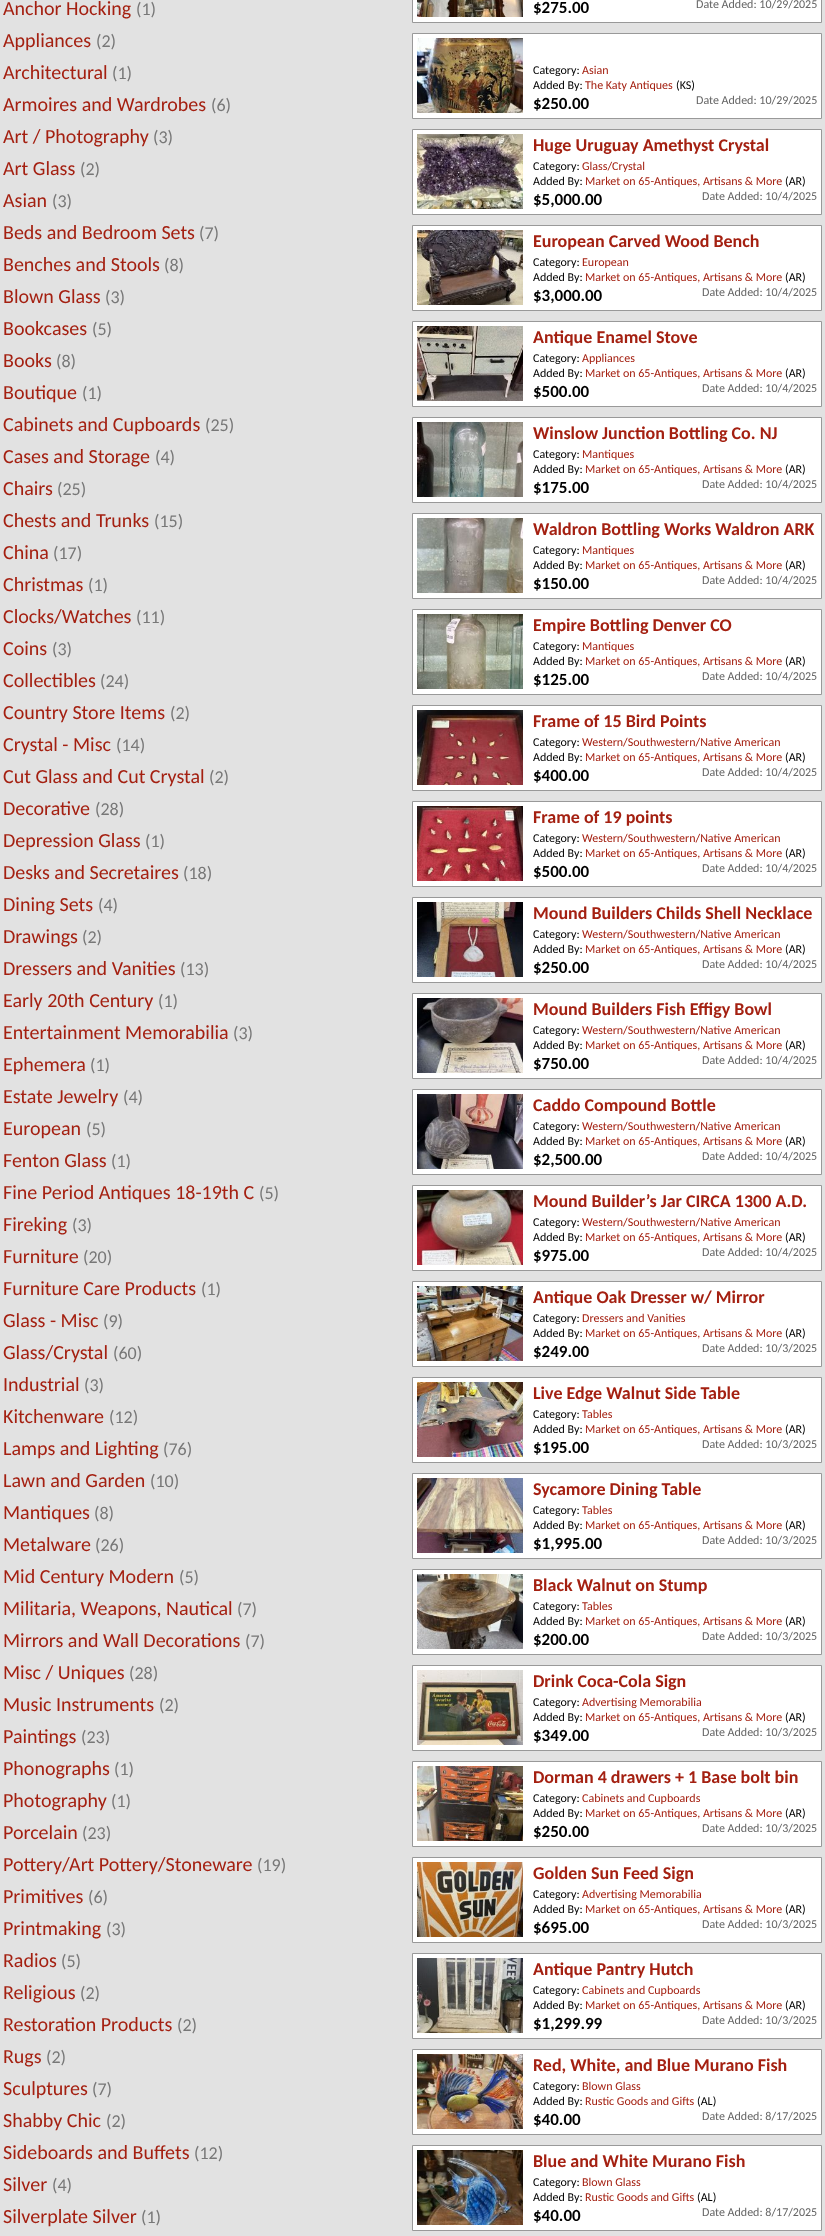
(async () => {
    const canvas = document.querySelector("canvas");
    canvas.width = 825;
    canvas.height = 2236;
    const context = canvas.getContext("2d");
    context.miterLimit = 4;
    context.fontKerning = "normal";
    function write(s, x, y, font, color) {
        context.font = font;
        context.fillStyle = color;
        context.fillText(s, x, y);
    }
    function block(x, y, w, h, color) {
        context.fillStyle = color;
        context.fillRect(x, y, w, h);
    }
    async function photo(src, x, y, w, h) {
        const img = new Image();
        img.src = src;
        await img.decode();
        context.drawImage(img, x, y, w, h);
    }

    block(0, 0, 825, 2236, "rgb(226, 226, 226)");
    write("Anchor Hocking", 3, 15, "20px Carlito", "rgb(164, 32, 17)");
    write("(1)", 136, 15, "18px Carlito", "rgb(119, 119, 119)");
    write("Appliances", 3, 47, "20px Carlito", "rgb(164, 32, 17)");
    write("(2)", 96, 47, "18px Carlito", "rgb(119, 119, 119)");
    write("Architectural", 3, 79, "20px Carlito", "rgb(164, 32, 17)");
    write("(1)", 112, 79, "18px Carlito", "rgb(119, 119, 119)");
    write("Armoires and Wardrobes", 3, 111, "20px Carlito", "rgb(164, 32, 17)");
    write("(6)", 211, 111, "18px Carlito", "rgb(119, 119, 119)");
    write("Art / Photography", 3, 143, "20px Carlito", "rgb(164, 32, 17)");
    write("(3)", 153, 143, "18px Carlito", "rgb(119, 119, 119)");
    write("Art Glass", 3, 175, "20px Carlito", "rgb(164, 32, 17)");
    write("(2)", 80, 175, "18px Carlito", "rgb(119, 119, 119)");
    write("Asian", 3, 207, "20px Carlito", "rgb(164, 32, 17)");
    write("(3)", 52, 207, "18px Carlito", "rgb(119, 119, 119)");
    write("Beds and Bedroom Sets", 3, 239, "20px Carlito", "rgb(164, 32, 17)");
    write("(7)", 199, 239, "18px Carlito", "rgb(119, 119, 119)");
    write("Benches and Stools", 3, 271, "20px Carlito", "rgb(164, 32, 17)");
    write("(8)", 164, 271, "18px Carlito", "rgb(119, 119, 119)");
    write("Blown Glass", 3, 303, "20px Carlito", "rgb(164, 32, 17)");
    write("(3)", 105, 303, "18px Carlito", "rgb(119, 119, 119)");
    write("Bookcases", 3, 335, "20px Carlito", "rgb(164, 32, 17)");
    write("(5)", 92, 335, "18px Carlito", "rgb(119, 119, 119)");
    write("Books", 3, 367, "20px Carlito", "rgb(164, 32, 17)");
    write("(8)", 56, 367, "18px Carlito", "rgb(119, 119, 119)");
    write("Boutique", 3, 399, "20px Carlito", "rgb(164, 32, 17)");
    write("(1)", 82, 399, "18px Carlito", "rgb(119, 119, 119)");
    write("Cabinets and Cupboards", 3, 431, "20px Carlito", "rgb(164, 32, 17)");
    write("(25)", 205, 431, "18px Carlito", "rgb(119, 119, 119)");
    write("Cases and Storage", 3, 463, "20px Carlito", "rgb(164, 32, 17)");
    write("(4)", 155, 463, "18px Carlito", "rgb(119, 119, 119)");
    write("Chairs", 3, 495, "20px Carlito", "rgb(164, 32, 17)");
    write("(25)", 57, 495, "18px Carlito", "rgb(119, 119, 119)");
    write("Chests and Trunks", 3, 527, "20px Carlito", "rgb(164, 32, 17)");
    write("(15)", 154, 527, "18px Carlito", "rgb(119, 119, 119)");
    write("China", 3, 559, "20px Carlito", "rgb(164, 32, 17)");
    write("(17)", 53, 559, "18px Carlito", "rgb(119, 119, 119)");
    write("Christmas", 3, 591, "20px Carlito", "rgb(164, 32, 17)");
    write("(1)", 88, 591, "18px Carlito", "rgb(119, 119, 119)");
    write("Clocks/Watches", 3, 623, "20px Carlito", "rgb(164, 32, 17)");
    write("(11)", 136, 623, "18px Carlito", "rgb(119, 119, 119)");
    write("Coins", 3, 655, "20px Carlito", "rgb(164, 32, 17)");
    write("(3)", 52, 655, "18px Carlito", "rgb(119, 119, 119)");
    write("Collectibles", 3, 687, "20px Carlito", "rgb(164, 32, 17)");
    write("(24)", 100, 687, "18px Carlito", "rgb(119, 119, 119)");
    write("Country Store Items", 3, 719, "20px Carlito", "rgb(164, 32, 17)");
    write("(2)", 170, 719, "18px Carlito", "rgb(119, 119, 119)");
    write("Crystal - Misc", 3, 751, "20px Carlito", "rgb(164, 32, 17)");
    write("(14)", 116, 751, "18px Carlito", "rgb(119, 119, 119)");
    write("Cut Glass and Cut Crystal", 3, 783, "20px Carlito", "rgb(164, 32, 17)");
    write("(2)", 209, 783, "18px Carlito", "rgb(119, 119, 119)");
    write("Decorative", 3, 815, "20px Carlito", "rgb(164, 32, 17)");
    write("(28)", 95, 815, "18px Carlito", "rgb(119, 119, 119)");
    write("Depression Glass", 3, 847, "20px Carlito", "rgb(164, 32, 17)");
    write("(1)", 145, 847, "18px Carlito", "rgb(119, 119, 119)");
    write("Desks and Secretaires", 3, 879, "20px Carlito", "rgb(164, 32, 17)");
    write("(18)", 183, 879, "18px Carlito", "rgb(119, 119, 119)");
    write("Dining Sets", 3, 911, "20px Carlito", "rgb(164, 32, 17)");
    write("(4)", 98, 911, "18px Carlito", "rgb(119, 119, 119)");
    write("Drawings", 3, 943, "20px Carlito", "rgb(164, 32, 17)");
    write("(2)", 82, 943, "18px Carlito", "rgb(119, 119, 119)");
    write("Dressers and Vanities", 3, 975, "20px Carlito", "rgb(164, 32, 17)");
    write("(13)", 180, 975, "18px Carlito", "rgb(119, 119, 119)");
    write("Early 20th Century", 3, 1007, "20px Carlito", "rgb(164, 32, 17)");
    write("(1)", 158, 1007, "18px Carlito", "rgb(119, 119, 119)");
    write("Entertainment Memorabilia", 3, 1039, "20px Carlito", "rgb(164, 32, 17)");
    write("(3)", 233, 1039, "18px Carlito", "rgb(119, 119, 119)");
    write("Ephemera", 3, 1071, "20px Carlito", "rgb(164, 32, 17)");
    write("(1)", 90, 1071, "18px Carlito", "rgb(119, 119, 119)");
    write("Estate Jewelry", 3, 1103, "20px Carlito", "rgb(164, 32, 17)");
    write("(4)", 123, 1103, "18px Carlito", "rgb(119, 119, 119)");
    write("European", 3, 1135, "20px Carlito", "rgb(164, 32, 17)");
    write("(5)", 86, 1135, "18px Carlito", "rgb(119, 119, 119)");
    write("Fenton Glass", 3, 1167, "20px Carlito", "rgb(164, 32, 17)");
    write("(1)", 111, 1167, "18px Carlito", "rgb(119, 119, 119)");
    write("Fine Period Antiques 18-19th C", 3, 1199, "20px Carlito", "rgb(164, 32, 17)");
    write("(5)", 259, 1199, "18px Carlito", "rgb(119, 119, 119)");
    write("Fireking", 3, 1231, "20px Carlito", "rgb(164, 32, 17)");
    write("(3)", 72, 1231, "18px Carlito", "rgb(119, 119, 119)");
    write("Furniture", 3, 1263, "20px Carlito", "rgb(164, 32, 17)");
    write("(20)", 83, 1263, "18px Carlito", "rgb(119, 119, 119)");
    write("Furniture Care Products", 3, 1295, "20px Carlito", "rgb(164, 32, 17)");
    write("(1)", 201, 1295, "18px Carlito", "rgb(119, 119, 119)");
    write("Glass - Misc", 3, 1327, "20px Carlito", "rgb(164, 32, 17)");
    write("(9)", 103, 1327, "18px Carlito", "rgb(119, 119, 119)");
    write("Glass/Crystal", 3, 1359, "20px Carlito", "rgb(164, 32, 17)");
    write("(60)", 113, 1359, "18px Carlito", "rgb(119, 119, 119)");
    write("Industrial", 3, 1391, "20px Carlito", "rgb(164, 32, 17)");
    write("(3)", 84, 1391, "18px Carlito", "rgb(119, 119, 119)");
    write("Kitchenware", 3, 1423, "20px Carlito", "rgb(164, 32, 17)");
    write("(12)", 109, 1423, "18px Carlito", "rgb(119, 119, 119)");
    write("Lamps and Lighting", 3, 1455, "20px Carlito", "rgb(164, 32, 17)");
    write("(76)", 163, 1455, "18px Carlito", "rgb(119, 119, 119)");
    write("Lawn and Garden", 3, 1487, "20px Carlito", "rgb(164, 32, 17)");
    write("(10)", 150, 1487, "18px Carlito", "rgb(119, 119, 119)");
    write("Mantiques", 3, 1519, "20px Carlito", "rgb(164, 32, 17)");
    write("(8)", 94, 1519, "18px Carlito", "rgb(119, 119, 119)");
    write("Metalware", 3, 1551, "20px Carlito", "rgb(164, 32, 17)");
    write("(26)", 95, 1551, "18px Carlito", "rgb(119, 119, 119)");
    write("Mid Century Modern", 3, 1583, "20px Carlito", "rgb(164, 32, 17)");
    write("(5)", 179, 1583, "18px Carlito", "rgb(119, 119, 119)");
    write("Militaria, Weapons, Nautical", 3, 1615, "20px Carlito", "rgb(164, 32, 17)");
    write("(7)", 237, 1615, "18px Carlito", "rgb(119, 119, 119)");
    write("Mirrors and Wall Decorations", 3, 1647, "20px Carlito", "rgb(164, 32, 17)");
    write("(7)", 245, 1647, "18px Carlito", "rgb(119, 119, 119)");
    write("Misc / Uniques", 3, 1679, "20px Carlito", "rgb(164, 32, 17)");
    write("(28)", 129, 1679, "18px Carlito", "rgb(119, 119, 119)");
    write("Music Instruments", 3, 1711, "20px Carlito", "rgb(164, 32, 17)");
    write("(2)", 159, 1711, "18px Carlito", "rgb(119, 119, 119)");
    write("Paintings", 3, 1743, "20px Carlito", "rgb(164, 32, 17)");
    write("(23)", 81, 1743, "18px Carlito", "rgb(119, 119, 119)");
    write("Phonographs", 3, 1775, "20px Carlito", "rgb(164, 32, 17)");
    write("(1)", 114, 1775, "18px Carlito", "rgb(119, 119, 119)");
    write("Photography", 3, 1807, "20px Carlito", "rgb(164, 32, 17)");
    write("(1)", 111, 1807, "18px Carlito", "rgb(119, 119, 119)");
    write("Porcelain", 3, 1839, "20px Carlito", "rgb(164, 32, 17)");
    write("(23)", 82, 1839, "18px Carlito", "rgb(119, 119, 119)");
    write("Pottery/Art Pottery/Stoneware", 3, 1871, "20px Carlito", "rgb(164, 32, 17)");
    write("(19)", 257, 1871, "18px Carlito", "rgb(119, 119, 119)");
    write("Primitives", 3, 1903, "20px Carlito", "rgb(164, 32, 17)");
    write("(6)", 88, 1903, "18px Carlito", "rgb(119, 119, 119)");
    write("Printmaking", 3, 1935, "20px Carlito", "rgb(164, 32, 17)");
    write("(3)", 106, 1935, "18px Carlito", "rgb(119, 119, 119)");
    write("Radios", 3, 1967, "20px Carlito", "rgb(164, 32, 17)");
    write("(5)", 61, 1967, "18px Carlito", "rgb(119, 119, 119)");
    write("Religious", 3, 1999, "20px Carlito", "rgb(164, 32, 17)");
    write("(2)", 80, 1999, "18px Carlito", "rgb(119, 119, 119)");
    write("Restoration Products", 3, 2031, "20px Carlito", "rgb(164, 32, 17)");
    write("(2)", 177, 2031, "18px Carlito", "rgb(119, 119, 119)");
    write("Rugs", 3, 2063, "20px Carlito", "rgb(164, 32, 17)");
    write("(2)", 46, 2063, "18px Carlito", "rgb(119, 119, 119)");
    write("Sculptures", 3, 2095, "20px Carlito", "rgb(164, 32, 17)");
    write("(7)", 92, 2095, "18px Carlito", "rgb(119, 119, 119)");
    write("Shabby Chic", 3, 2127, "20px Carlito", "rgb(164, 32, 17)");
    write("(2)", 106, 2127, "18px Carlito", "rgb(119, 119, 119)");
    write("Sideboards and Buffets", 3, 2159, "20px Carlito", "rgb(164, 32, 17)");
    write("(12)", 194, 2159, "18px Carlito", "rgb(119, 119, 119)");
    write("Silver", 3, 2191, "20px Carlito", "rgb(164, 32, 17)");
    write("(4)", 52, 2191, "18px Carlito", "rgb(119, 119, 119)");
    write("Silverplate Silver", 3, 2223, "20px Carlito", "rgb(164, 32, 17)");
    write("(1)", 141, 2223, "18px Carlito", "rgb(119, 119, 119)");
    context.fillStyle = "rgb(255, 255, 255)";
    context.beginPath();
    context.rect(412.5, -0.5, 409, 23);
    context.fill();
    context.strokeStyle = "rgb(153, 153, 153)";
    context.stroke();
    await photo("media/1.png", 417, 0, 106, 17);
    write("$275.00", 533, 13, "bold 17px Carlito", "rgb(0, 0, 0)");
    write("Date Added: 10/29/2025", 696, 8, "12px Carlito", "rgb(102, 102, 102)");
    context.fillStyle = "rgb(255, 255, 255)";
    context.beginPath();
    context.rect(412.5, 33.5, 409, 85);
    context.fill();
    context.stroke();
    await photo("media/2.png", 417, 38, 106, 75);
    write("Category:", 533, 74, "12px Carlito", "rgb(0, 0, 0)");
    write("Asian", 582, 74, "12px Carlito", "rgb(164, 32, 17)");
    write("Added By:", 533, 89, "12px Carlito", "rgb(0, 0, 0)");
    write("The Katy Antiques", 585, 89, "12px Carlito", "rgb(164, 32, 17)");
    write("(KS)", 676, 89, "12px Carlito", "rgb(0, 0, 0)");
    write("$250.00", 533, 109, "bold 17px Carlito", "rgb(0, 0, 0)");
    write("Date Added: 10/29/2025", 696, 104, "12px Carlito", "rgb(102, 102, 102)");
    context.fillStyle = "rgb(255, 255, 255)";
    context.beginPath();
    context.rect(412.5, 129.5, 409, 85);
    context.fill();
    context.stroke();
    await photo("media/3.png", 417, 134, 106, 75);
    write("Huge Uruguay Amethyst Crystal", 533, 151, "bold 18px Carlito", "rgb(164, 32, 17)");
    write("Category:", 533, 170, "12px Carlito", "rgb(0, 0, 0)");
    write("Glass/Crystal", 582, 170, "12px Carlito", "rgb(164, 32, 17)");
    write("Added By:", 533, 185, "12px Carlito", "rgb(0, 0, 0)");
    write("Market on 65-Antiques, Artisans & More", 585, 185, "12px Carlito", "rgb(164, 32, 17)");
    write("(AR)", 785, 185, "12px Carlito", "rgb(0, 0, 0)");
    write("$5,000.00", 533, 205, "bold 17px Carlito", "rgb(0, 0, 0)");
    write("Date Added: 10/4/2025", 702, 200, "12px Carlito", "rgb(102, 102, 102)");
    context.fillStyle = "rgb(255, 255, 255)";
    context.beginPath();
    context.rect(412.5, 225.5, 409, 85);
    context.fill();
    context.stroke();
    await photo("media/4.png", 417, 230, 106, 75);
    write("European Carved Wood Bench", 533, 247, "bold 18px Carlito", "rgb(164, 32, 17)");
    write("Category:", 533, 266, "12px Carlito", "rgb(0, 0, 0)");
    write("European", 582, 266, "12px Carlito", "rgb(164, 32, 17)");
    write("Added By:", 533, 281, "12px Carlito", "rgb(0, 0, 0)");
    write("Market on 65-Antiques, Artisans & More", 585, 281, "12px Carlito", "rgb(164, 32, 17)");
    write("(AR)", 785, 281, "12px Carlito", "rgb(0, 0, 0)");
    write("$3,000.00", 533, 301, "bold 17px Carlito", "rgb(0, 0, 0)");
    write("Date Added: 10/4/2025", 702, 296, "12px Carlito", "rgb(102, 102, 102)");
    context.fillStyle = "rgb(255, 255, 255)";
    context.beginPath();
    context.rect(412.5, 321.5, 409, 85);
    context.fill();
    context.stroke();
    await photo("media/5.png", 417, 326, 106, 75);
    write("Antique Enamel Stove", 533, 343, "bold 18px Carlito", "rgb(164, 32, 17)");
    write("Category:", 533, 362, "12px Carlito", "rgb(0, 0, 0)");
    write("Appliances", 582, 362, "12px Carlito", "rgb(164, 32, 17)");
    write("Added By:", 533, 377, "12px Carlito", "rgb(0, 0, 0)");
    write("Market on 65-Antiques, Artisans & More", 585, 377, "12px Carlito", "rgb(164, 32, 17)");
    write("(AR)", 785, 377, "12px Carlito", "rgb(0, 0, 0)");
    write("$500.00", 533, 397, "bold 17px Carlito", "rgb(0, 0, 0)");
    write("Date Added: 10/4/2025", 702, 392, "12px Carlito", "rgb(102, 102, 102)");
    context.fillStyle = "rgb(255, 255, 255)";
    context.beginPath();
    context.rect(412.5, 417.5, 409, 85);
    context.fill();
    context.stroke();
    await photo("media/6.png", 417, 422, 106, 75);
    write("Winslow Junction Bottling Co. NJ", 533, 439, "bold 18px Carlito", "rgb(164, 32, 17)");
    write("Category:", 533, 458, "12px Carlito", "rgb(0, 0, 0)");
    write("Mantiques", 582, 458, "12px Carlito", "rgb(164, 32, 17)");
    write("Added By:", 533, 473, "12px Carlito", "rgb(0, 0, 0)");
    write("Market on 65-Antiques, Artisans & More", 585, 473, "12px Carlito", "rgb(164, 32, 17)");
    write("(AR)", 785, 473, "12px Carlito", "rgb(0, 0, 0)");
    write("$175.00", 533, 493, "bold 17px Carlito", "rgb(0, 0, 0)");
    write("Date Added: 10/4/2025", 702, 488, "12px Carlito", "rgb(102, 102, 102)");
    context.fillStyle = "rgb(255, 255, 255)";
    context.beginPath();
    context.rect(412.5, 513.5, 409, 85);
    context.fill();
    context.stroke();
    await photo("media/7.png", 417, 518, 106, 75);
    write("Waldron Bottling Works Waldron ARK", 533, 535, "bold 18px Carlito", "rgb(164, 32, 17)");
    write("Category:", 533, 554, "12px Carlito", "rgb(0, 0, 0)");
    write("Mantiques", 582, 554, "12px Carlito", "rgb(164, 32, 17)");
    write("Added By:", 533, 569, "12px Carlito", "rgb(0, 0, 0)");
    write("Market on 65-Antiques, Artisans & More", 585, 569, "12px Carlito", "rgb(164, 32, 17)");
    write("(AR)", 785, 569, "12px Carlito", "rgb(0, 0, 0)");
    write("$150.00", 533, 589, "bold 17px Carlito", "rgb(0, 0, 0)");
    write("Date Added: 10/4/2025", 702, 584, "12px Carlito", "rgb(102, 102, 102)");
    context.fillStyle = "rgb(255, 255, 255)";
    context.beginPath();
    context.rect(412.5, 609.5, 409, 85);
    context.fill();
    context.stroke();
    await photo("media/8.png", 417, 614, 106, 75);
    write("Empire Bottling Denver CO", 533, 631, "bold 18px Carlito", "rgb(164, 32, 17)");
    write("Category:", 533, 650, "12px Carlito", "rgb(0, 0, 0)");
    write("Mantiques", 582, 650, "12px Carlito", "rgb(164, 32, 17)");
    write("Added By:", 533, 665, "12px Carlito", "rgb(0, 0, 0)");
    write("Market on 65-Antiques, Artisans & More", 585, 665, "12px Carlito", "rgb(164, 32, 17)");
    write("(AR)", 785, 665, "12px Carlito", "rgb(0, 0, 0)");
    write("$125.00", 533, 685, "bold 17px Carlito", "rgb(0, 0, 0)");
    write("Date Added: 10/4/2025", 702, 680, "12px Carlito", "rgb(102, 102, 102)");
    context.fillStyle = "rgb(255, 255, 255)";
    context.beginPath();
    context.rect(412.5, 705.5, 409, 85);
    context.fill();
    context.stroke();
    await photo("media/9.png", 417, 710, 106, 75);
    write("Frame of 15 Bird Points", 533, 727, "bold 18px Carlito", "rgb(164, 32, 17)");
    write("Category:", 533, 746, "12px Carlito", "rgb(0, 0, 0)");
    write("Western/Southwestern/Native American", 582, 746, "12px Carlito", "rgb(164, 32, 17)");
    write("Added By:", 533, 761, "12px Carlito", "rgb(0, 0, 0)");
    write("Market on 65-Antiques, Artisans & More", 585, 761, "12px Carlito", "rgb(164, 32, 17)");
    write("(AR)", 785, 761, "12px Carlito", "rgb(0, 0, 0)");
    write("$400.00", 533, 781, "bold 17px Carlito", "rgb(0, 0, 0)");
    write("Date Added: 10/4/2025", 702, 776, "12px Carlito", "rgb(102, 102, 102)");
    context.fillStyle = "rgb(255, 255, 255)";
    context.beginPath();
    context.rect(412.5, 801.5, 409, 85);
    context.fill();
    context.stroke();
    await photo("media/10.png", 417, 806, 106, 75);
    write("Frame of 19 points", 533, 823, "bold 18px Carlito", "rgb(164, 32, 17)");
    write("Category:", 533, 842, "12px Carlito", "rgb(0, 0, 0)");
    write("Western/Southwestern/Native American", 582, 842, "12px Carlito", "rgb(164, 32, 17)");
    write("Added By:", 533, 857, "12px Carlito", "rgb(0, 0, 0)");
    write("Market on 65-Antiques, Artisans & More", 585, 857, "12px Carlito", "rgb(164, 32, 17)");
    write("(AR)", 785, 857, "12px Carlito", "rgb(0, 0, 0)");
    write("$500.00", 533, 877, "bold 17px Carlito", "rgb(0, 0, 0)");
    write("Date Added: 10/4/2025", 702, 872, "12px Carlito", "rgb(102, 102, 102)");
    context.fillStyle = "rgb(255, 255, 255)";
    context.beginPath();
    context.rect(412.5, 897.5, 409, 85);
    context.fill();
    context.stroke();
    await photo("media/11.png", 417, 902, 106, 75);
    write("Mound Builders Childs Shell Necklace", 533, 919, "bold 18px Carlito", "rgb(164, 32, 17)");
    write("Category:", 533, 938, "12px Carlito", "rgb(0, 0, 0)");
    write("Western/Southwestern/Native American", 582, 938, "12px Carlito", "rgb(164, 32, 17)");
    write("Added By:", 533, 953, "12px Carlito", "rgb(0, 0, 0)");
    write("Market on 65-Antiques, Artisans & More", 585, 953, "12px Carlito", "rgb(164, 32, 17)");
    write("(AR)", 785, 953, "12px Carlito", "rgb(0, 0, 0)");
    write("$250.00", 533, 973, "bold 17px Carlito", "rgb(0, 0, 0)");
    write("Date Added: 10/4/2025", 702, 968, "12px Carlito", "rgb(102, 102, 102)");
    context.fillStyle = "rgb(255, 255, 255)";
    context.beginPath();
    context.rect(412.5, 993.5, 409, 85);
    context.fill();
    context.stroke();
    await photo("media/12.png", 417, 998, 106, 75);
    write("Mound Builders Fish Effigy Bowl", 533, 1015, "bold 18px Carlito", "rgb(164, 32, 17)");
    write("Category:", 533, 1034, "12px Carlito", "rgb(0, 0, 0)");
    write("Western/Southwestern/Native American", 582, 1034, "12px Carlito", "rgb(164, 32, 17)");
    write("Added By:", 533, 1049, "12px Carlito", "rgb(0, 0, 0)");
    write("Market on 65-Antiques, Artisans & More", 585, 1049, "12px Carlito", "rgb(164, 32, 17)");
    write("(AR)", 785, 1049, "12px Carlito", "rgb(0, 0, 0)");
    write("$750.00", 533, 1069, "bold 17px Carlito", "rgb(0, 0, 0)");
    write("Date Added: 10/4/2025", 702, 1064, "12px Carlito", "rgb(102, 102, 102)");
    context.fillStyle = "rgb(255, 255, 255)";
    context.beginPath();
    context.rect(412.5, 1089.5, 409, 85);
    context.fill();
    context.stroke();
    await photo("media/13.png", 417, 1094, 106, 75);
    write("Caddo Compound Bottle", 533, 1111, "bold 18px Carlito", "rgb(164, 32, 17)");
    write("Category:", 533, 1130, "12px Carlito", "rgb(0, 0, 0)");
    write("Western/Southwestern/Native American", 582, 1130, "12px Carlito", "rgb(164, 32, 17)");
    write("Added By:", 533, 1145, "12px Carlito", "rgb(0, 0, 0)");
    write("Market on 65-Antiques, Artisans & More", 585, 1145, "12px Carlito", "rgb(164, 32, 17)");
    write("(AR)", 785, 1145, "12px Carlito", "rgb(0, 0, 0)");
    write("$2,500.00", 533, 1165, "bold 17px Carlito", "rgb(0, 0, 0)");
    write("Date Added: 10/4/2025", 702, 1160, "12px Carlito", "rgb(102, 102, 102)");
    context.fillStyle = "rgb(255, 255, 255)";
    context.beginPath();
    context.rect(412.5, 1185.5, 409, 85);
    context.fill();
    context.stroke();
    await photo("media/14.png", 417, 1190, 106, 75);
    write("Mound Builder’s Jar CIRCA 1300 A.D.", 533, 1207, "bold 18px Carlito", "rgb(164, 32, 17)");
    write("Category:", 533, 1226, "12px Carlito", "rgb(0, 0, 0)");
    write("Western/Southwestern/Native American", 582, 1226, "12px Carlito", "rgb(164, 32, 17)");
    write("Added By:", 533, 1241, "12px Carlito", "rgb(0, 0, 0)");
    write("Market on 65-Antiques, Artisans & More", 585, 1241, "12px Carlito", "rgb(164, 32, 17)");
    write("(AR)", 785, 1241, "12px Carlito", "rgb(0, 0, 0)");
    write("$975.00", 533, 1261, "bold 17px Carlito", "rgb(0, 0, 0)");
    write("Date Added: 10/4/2025", 702, 1256, "12px Carlito", "rgb(102, 102, 102)");
    context.fillStyle = "rgb(255, 255, 255)";
    context.beginPath();
    context.rect(412.5, 1281.5, 409, 85);
    context.fill();
    context.stroke();
    await photo("media/15.png", 417, 1286, 106, 75);
    write("Antique Oak Dresser w/ Mirror", 533, 1303, "bold 18px Carlito", "rgb(164, 32, 17)");
    write("Category:", 533, 1322, "12px Carlito", "rgb(0, 0, 0)");
    write("Dressers and Vanities", 582, 1322, "12px Carlito", "rgb(164, 32, 17)");
    write("Added By:", 533, 1337, "12px Carlito", "rgb(0, 0, 0)");
    write("Market on 65-Antiques, Artisans & More", 585, 1337, "12px Carlito", "rgb(164, 32, 17)");
    write("(AR)", 785, 1337, "12px Carlito", "rgb(0, 0, 0)");
    write("$249.00", 533, 1357, "bold 17px Carlito", "rgb(0, 0, 0)");
    write("Date Added: 10/3/2025", 702, 1352, "12px Carlito", "rgb(102, 102, 102)");
    context.fillStyle = "rgb(255, 255, 255)";
    context.beginPath();
    context.rect(412.5, 1377.5, 409, 85);
    context.fill();
    context.stroke();
    await photo("media/16.png", 417, 1382, 106, 75);
    write("Live Edge Walnut Side Table", 533, 1399, "bold 18px Carlito", "rgb(164, 32, 17)");
    write("Category:", 533, 1418, "12px Carlito", "rgb(0, 0, 0)");
    write("Tables", 582, 1418, "12px Carlito", "rgb(164, 32, 17)");
    write("Added By:", 533, 1433, "12px Carlito", "rgb(0, 0, 0)");
    write("Market on 65-Antiques, Artisans & More", 585, 1433, "12px Carlito", "rgb(164, 32, 17)");
    write("(AR)", 785, 1433, "12px Carlito", "rgb(0, 0, 0)");
    write("$195.00", 533, 1453, "bold 17px Carlito", "rgb(0, 0, 0)");
    write("Date Added: 10/3/2025", 702, 1448, "12px Carlito", "rgb(102, 102, 102)");
    context.fillStyle = "rgb(255, 255, 255)";
    context.beginPath();
    context.rect(412.5, 1473.5, 409, 85);
    context.fill();
    context.stroke();
    await photo("media/17.png", 417, 1478, 106, 75);
    write("Sycamore Dining Table", 533, 1495, "bold 18px Carlito", "rgb(164, 32, 17)");
    write("Category:", 533, 1514, "12px Carlito", "rgb(0, 0, 0)");
    write("Tables", 582, 1514, "12px Carlito", "rgb(164, 32, 17)");
    write("Added By:", 533, 1529, "12px Carlito", "rgb(0, 0, 0)");
    write("Market on 65-Antiques, Artisans & More", 585, 1529, "12px Carlito", "rgb(164, 32, 17)");
    write("(AR)", 785, 1529, "12px Carlito", "rgb(0, 0, 0)");
    write("$1,995.00", 533, 1549, "bold 17px Carlito", "rgb(0, 0, 0)");
    write("Date Added: 10/3/2025", 702, 1544, "12px Carlito", "rgb(102, 102, 102)");
    context.fillStyle = "rgb(255, 255, 255)";
    context.beginPath();
    context.rect(412.5, 1569.5, 409, 85);
    context.fill();
    context.stroke();
    await photo("media/18.png", 417, 1574, 106, 75);
    write("Black Walnut on Stump", 533, 1591, "bold 18px Carlito", "rgb(164, 32, 17)");
    write("Category:", 533, 1610, "12px Carlito", "rgb(0, 0, 0)");
    write("Tables", 582, 1610, "12px Carlito", "rgb(164, 32, 17)");
    write("Added By:", 533, 1625, "12px Carlito", "rgb(0, 0, 0)");
    write("Market on 65-Antiques, Artisans & More", 585, 1625, "12px Carlito", "rgb(164, 32, 17)");
    write("(AR)", 785, 1625, "12px Carlito", "rgb(0, 0, 0)");
    write("$200.00", 533, 1645, "bold 17px Carlito", "rgb(0, 0, 0)");
    write("Date Added: 10/3/2025", 702, 1640, "12px Carlito", "rgb(102, 102, 102)");
    context.fillStyle = "rgb(255, 255, 255)";
    context.beginPath();
    context.rect(412.5, 1665.5, 409, 85);
    context.fill();
    context.stroke();
    await photo("media/19.png", 417, 1670, 106, 75);
    write("Drink Coca-Cola Sign", 533, 1687, "bold 18px Carlito", "rgb(164, 32, 17)");
    write("Category:", 533, 1706, "12px Carlito", "rgb(0, 0, 0)");
    write("Advertising Memorabilia", 582, 1706, "12px Carlito", "rgb(164, 32, 17)");
    write("Added By:", 533, 1721, "12px Carlito", "rgb(0, 0, 0)");
    write("Market on 65-Antiques, Artisans & More", 585, 1721, "12px Carlito", "rgb(164, 32, 17)");
    write("(AR)", 785, 1721, "12px Carlito", "rgb(0, 0, 0)");
    write("$349.00", 533, 1741, "bold 17px Carlito", "rgb(0, 0, 0)");
    write("Date Added: 10/3/2025", 702, 1736, "12px Carlito", "rgb(102, 102, 102)");
    context.fillStyle = "rgb(255, 255, 255)";
    context.beginPath();
    context.rect(412.5, 1761.5, 409, 85);
    context.fill();
    context.stroke();
    await photo("media/20.png", 417, 1766, 106, 75);
    write("Dorman 4 drawers + 1 Base bolt bin", 533, 1783, "bold 18px Carlito", "rgb(164, 32, 17)");
    write("Category:", 533, 1802, "12px Carlito", "rgb(0, 0, 0)");
    write("Cabinets and Cupboards", 582, 1802, "12px Carlito", "rgb(164, 32, 17)");
    write("Added By:", 533, 1817, "12px Carlito", "rgb(0, 0, 0)");
    write("Market on 65-Antiques, Artisans & More", 585, 1817, "12px Carlito", "rgb(164, 32, 17)");
    write("(AR)", 785, 1817, "12px Carlito", "rgb(0, 0, 0)");
    write("$250.00", 533, 1837, "bold 17px Carlito", "rgb(0, 0, 0)");
    write("Date Added: 10/3/2025", 702, 1832, "12px Carlito", "rgb(102, 102, 102)");
    context.fillStyle = "rgb(255, 255, 255)";
    context.beginPath();
    context.rect(412.5, 1857.5, 409, 85);
    context.fill();
    context.stroke();
    await photo("media/21.png", 417, 1862, 106, 75);
    write("Golden Sun Feed Sign", 533, 1879, "bold 18px Carlito", "rgb(164, 32, 17)");
    write("Category:", 533, 1898, "12px Carlito", "rgb(0, 0, 0)");
    write("Advertising Memorabilia", 582, 1898, "12px Carlito", "rgb(164, 32, 17)");
    write("Added By:", 533, 1913, "12px Carlito", "rgb(0, 0, 0)");
    write("Market on 65-Antiques, Artisans & More", 585, 1913, "12px Carlito", "rgb(164, 32, 17)");
    write("(AR)", 785, 1913, "12px Carlito", "rgb(0, 0, 0)");
    write("$695.00", 533, 1933, "bold 17px Carlito", "rgb(0, 0, 0)");
    write("Date Added: 10/3/2025", 702, 1928, "12px Carlito", "rgb(102, 102, 102)");
    context.fillStyle = "rgb(255, 255, 255)";
    context.beginPath();
    context.rect(412.5, 1953.5, 409, 85);
    context.fill();
    context.stroke();
    await photo("media/22.png", 417, 1958, 106, 75);
    write("Antique Pantry Hutch", 533, 1975, "bold 18px Carlito", "rgb(164, 32, 17)");
    write("Category:", 533, 1994, "12px Carlito", "rgb(0, 0, 0)");
    write("Cabinets and Cupboards", 582, 1994, "12px Carlito", "rgb(164, 32, 17)");
    write("Added By:", 533, 2009, "12px Carlito", "rgb(0, 0, 0)");
    write("Market on 65-Antiques, Artisans & More", 585, 2009, "12px Carlito", "rgb(164, 32, 17)");
    write("(AR)", 785, 2009, "12px Carlito", "rgb(0, 0, 0)");
    write("$1,299.99", 533, 2029, "bold 17px Carlito", "rgb(0, 0, 0)");
    write("Date Added: 10/3/2025", 702, 2024, "12px Carlito", "rgb(102, 102, 102)");
    context.fillStyle = "rgb(255, 255, 255)";
    context.beginPath();
    context.rect(412.5, 2049.5, 409, 85);
    context.fill();
    context.stroke();
    await photo("media/23.png", 417, 2054, 106, 75);
    write("Red, White, and Blue Murano Fish", 533, 2071, "bold 18px Carlito", "rgb(164, 32, 17)");
    write("Category:", 533, 2090, "12px Carlito", "rgb(0, 0, 0)");
    write("Blown Glass", 582, 2090, "12px Carlito", "rgb(164, 32, 17)");
    write("Added By:", 533, 2105, "12px Carlito", "rgb(0, 0, 0)");
    write("Rustic Goods and Gifts", 585, 2105, "12px Carlito", "rgb(164, 32, 17)");
    write("(AL)", 697, 2105, "12px Carlito", "rgb(0, 0, 0)");
    write("$40.00", 533, 2125, "bold 17px Carlito", "rgb(0, 0, 0)");
    write("Date Added: 8/17/2025", 702, 2120, "12px Carlito", "rgb(102, 102, 102)");
    context.fillStyle = "rgb(255, 255, 255)";
    context.beginPath();
    context.rect(412.5, 2145.5, 409, 85);
    context.fill();
    context.stroke();
    await photo("media/24.png", 417, 2150, 106, 75);
    write("Blue and White Murano Fish", 533, 2167, "bold 18px Carlito", "rgb(164, 32, 17)");
    write("Category:", 533, 2186, "12px Carlito", "rgb(0, 0, 0)");
    write("Blown Glass", 582, 2186, "12px Carlito", "rgb(164, 32, 17)");
    write("Added By:", 533, 2201, "12px Carlito", "rgb(0, 0, 0)");
    write("Rustic Goods and Gifts", 585, 2201, "12px Carlito", "rgb(164, 32, 17)");
    write("(AL)", 697, 2201, "12px Carlito", "rgb(0, 0, 0)");
    write("$40.00", 533, 2221, "bold 17px Carlito", "rgb(0, 0, 0)");
    write("Date Added: 8/17/2025", 702, 2216, "12px Carlito", "rgb(102, 102, 102)");
})();
